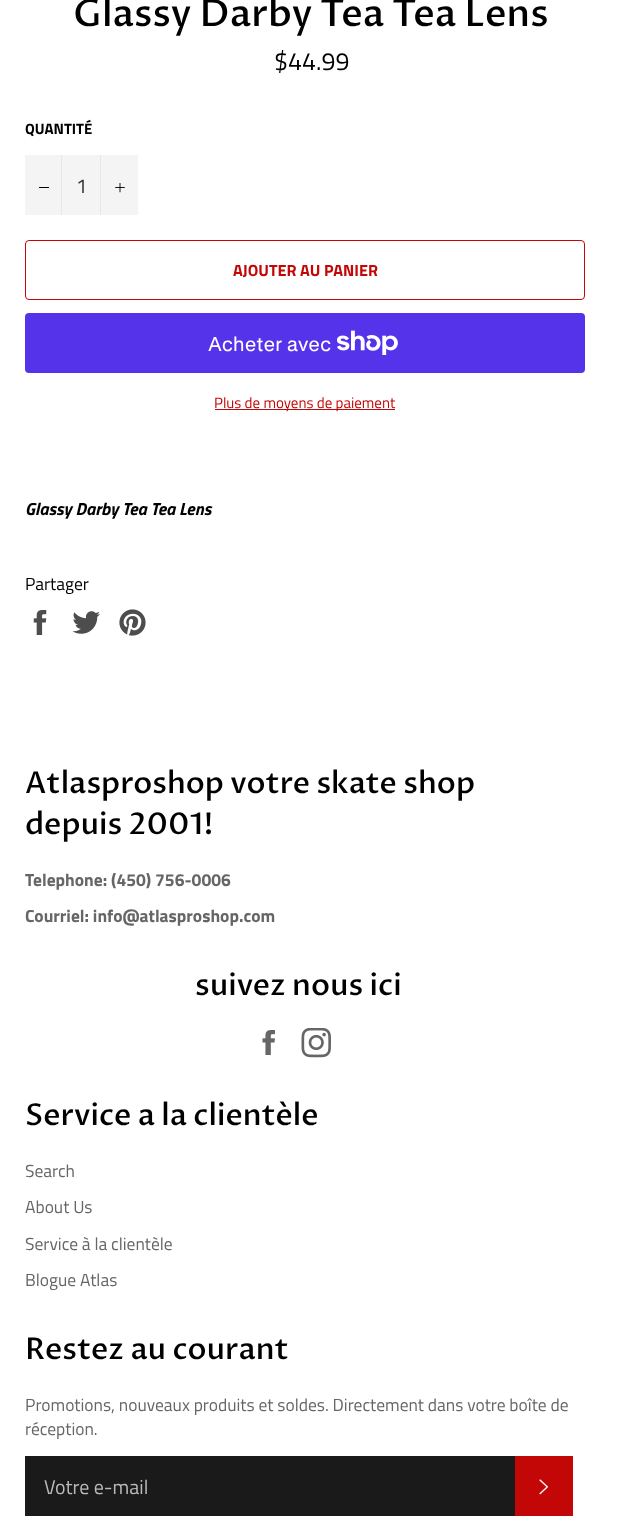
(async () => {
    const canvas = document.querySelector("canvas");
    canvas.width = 622;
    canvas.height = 1534;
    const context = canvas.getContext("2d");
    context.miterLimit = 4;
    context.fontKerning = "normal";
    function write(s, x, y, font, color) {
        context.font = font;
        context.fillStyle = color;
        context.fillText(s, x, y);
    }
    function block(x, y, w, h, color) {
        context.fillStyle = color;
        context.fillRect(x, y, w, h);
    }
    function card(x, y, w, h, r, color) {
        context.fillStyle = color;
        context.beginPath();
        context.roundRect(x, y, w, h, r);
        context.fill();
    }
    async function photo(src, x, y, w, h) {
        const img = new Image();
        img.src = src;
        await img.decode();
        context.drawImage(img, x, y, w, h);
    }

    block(0, 0, 622, 1534, "rgb(255, 255, 255)");
    write("Glassy Darby Tea Tea Lens", 73, 26, "500 37.5px Proza Libre", "rgb(0, 0, 0)");
    write("$44.99", 274, 70, "25px Titillium Web", "rgb(0, 0, 0)");
    write("QUANTITÉ", 25, 134, "bold 15px Titillium Web", "rgb(0, 0, 0)");
    block(25, 155, 113, 60, "rgb(244, 244, 244)");
    block(61, 155, 1, 60, "rgb(231, 231, 231)");
    block(39, 187, 10, 1, "rgb(0, 0, 0)");
    write("1", 76, 193, "20px Titillium Web", "rgb(51, 51, 51)");
    block(100, 155, 1, 60, "rgb(231, 231, 231)");
    await photo("media/1.png", 115, 183, 10, 10);
    context.beginPath();
    context.roundRect(25.5, 240.5, 559, 59, 3.5);
    context.strokeStyle = "rgb(195, 6, 6)";
    context.stroke();
    write("AJOUTER AU PANIER", 233, 276, "bold 16.25px Titillium Web", "rgb(195, 6, 6)");
    card(25, 313, 560, 60, 4, "rgb(84, 51, 235)");
    write("Acheter avec", 208, 351, "20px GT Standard", "rgb(255, 255, 255)");
    await photo("media/2.png", 336, 330, 62, 25);
    block(215, 409, 180, 1, "rgb(195, 6, 6)");
    write("Plus de moyens de paiement", 214, 408, "15px Titillium Web", "rgb(195, 6, 6)");
    write("Glassy Darby Tea Tea Lens", 25, 515, "italic bold 17.5px Titillium Web", "rgb(0, 0, 0)");
    write("Partager", 25, 590, "17.5px Titillium Web", "rgb(0, 0, 0)");
    await photo("media/3.png", 33, 610, 14, 25);
    await photo("media/4.png", 72, 611, 28, 23);
    await photo("media/5.png", 119, 609, 27, 27);
    write("Atlasproshop votre skate shop", 25, 793, "500 30px Proza Libre", "rgb(0, 0, 0)");
    write("depuis 2001!", 25, 834, "500 30px Proza Libre", "rgb(0, 0, 0)");
    write("Telephone: (450) 756-0006", 25, 886, "bold 17.5px Titillium Web", "rgb(102, 102, 102)");
    write("Courriel: info@atlasproshop.com", 25, 922, "bold 17.5px Titillium Web", "rgb(102, 102, 102)");
    write("suivez nous ici", 195, 995, "500 30px Proza Libre", "rgb(0, 0, 0)");
    await photo("media/6.png", 262, 1030, 13, 25);
    await photo("media/7.png", 301, 1028, 30, 30);
    write("Service a la clientèle", 25, 1125, "500 30px Proza Libre", "rgb(0, 0, 0)");
    write("Search", 25, 1177, "17.5px Titillium Web", "rgb(102, 102, 102)");
    write("About Us", 25, 1213, "17.5px Titillium Web", "rgb(102, 102, 102)");
    write("Service à la clientèle", 25, 1250, "17.5px Titillium Web", "rgb(102, 102, 102)");
    write("Blogue Atlas", 25, 1286, "17.5px Titillium Web", "rgb(102, 102, 102)");
    write("Restez au courant", 25, 1359, "500 30px Proza Libre", "rgb(0, 0, 0)");
    write("Promotions, nouveaux produits et soldes. Directement dans votre boîte de", 25, 1411, "17.5px Titillium Web", "rgb(102, 102, 102)");
    write("réception.", 25, 1435, "17.5px Titillium Web", "rgb(102, 102, 102)");
    block(25, 1456, 490, 60, "rgb(26, 26, 26)");
    write("Votre e-mail", 44, 1494, "20px Titillium Web", "rgb(186, 186, 186)");
    block(515, 1456, 58, 60, "rgb(195, 6, 6)");
    await photo("media/8.png", 539, 1479, 10, 16);
})();
